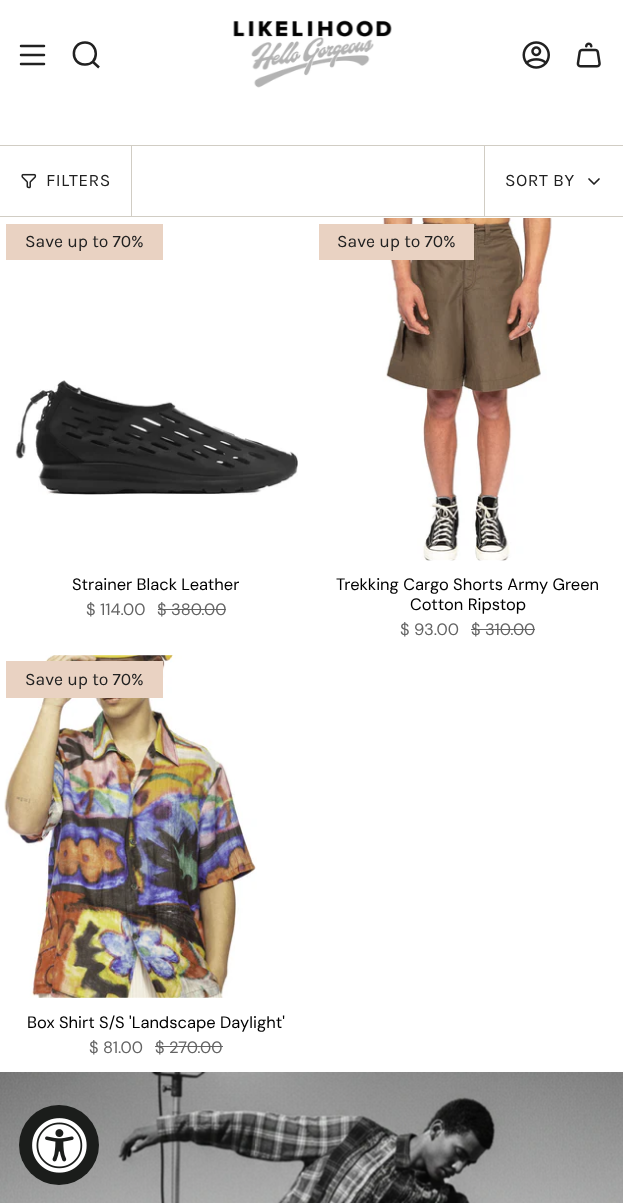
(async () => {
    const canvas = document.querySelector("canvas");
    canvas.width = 623;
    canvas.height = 1203;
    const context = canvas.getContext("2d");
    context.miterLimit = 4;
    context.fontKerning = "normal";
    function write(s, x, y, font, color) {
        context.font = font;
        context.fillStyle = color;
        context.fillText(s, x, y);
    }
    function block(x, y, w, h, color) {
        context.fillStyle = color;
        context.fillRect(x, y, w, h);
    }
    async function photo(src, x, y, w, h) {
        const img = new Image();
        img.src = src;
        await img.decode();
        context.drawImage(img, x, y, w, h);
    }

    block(0, 0, 623, 1203, "rgb(255, 255, 255)");
    context.beginPath();
    context.moveTo(21, 46);
    context.lineTo(44, 46);
    context.moveTo(21, 55);
    context.lineTo(44, 55);
    context.moveTo(21, 64);
    context.lineTo(44, 64);
    context.strokeStyle = "rgb(33, 33, 33)";
    context.lineWidth = 2.5;
    context.lineCap = "round";
    context.lineJoin = "round";
    context.stroke();
    context.beginPath();
    context.moveTo(85, 42.5);
    context.bezierCurveTo(99.5, 42.5, 99.5, 65.5, 84.5, 64.5);
    context.bezierCurveTo(70, 64, 70.5, 42.5, 85, 42.5);
    context.closePath();
    context.moveTo(92.5, 61.5);
    context.lineTo(99, 67.5);
    context.lineCap = "butt";
    context.lineJoin = "miter";
    context.stroke();
    await photo("media/1.png", 233, 20, 159, 68);
    await photo("media/2.png", 522, 41, 28, 28);
    await photo("media/3.png", 576, 42, 25, 26);
    block(0, 145, 623, 1, "rgb(209, 205, 196)");
    block(0, 216, 623, 1, "rgb(209, 205, 196)");
    block(131, 146, 1, 70, "rgb(209, 205, 196)");
    await photo("media/4.png", 21, 173, 16, 16);
    context.letterSpacing = "0.5px";
    write("FILTERS", 46, 186, "17.5px Karla", "rgb(33, 33, 33)");
    block(484, 146, 1, 70, "rgb(209, 205, 196)");
    write("SORT BY", 505, 186, "17.5px Karla", "rgb(33, 33, 33)");
    context.beginPath();
    context.moveTo(589, 179);
    context.lineTo(594, 184);
    context.lineTo(599, 179);
    context.lineWidth = 1.7;
    context.lineCap = "round";
    context.lineJoin = "round";
    context.stroke();
    block(6, 224, 157, 36, "rgb(233, 210, 194)");
    context.letterSpacing = "0px";
    write("Save up to 70%", 25, 247, "17.5px Karla", "rgb(33, 33, 33)");
    await photo("media/5.png", 15, 380, 283, 115);
    write("Strainer Black Leather", 72, 590, "16.5px DM Sans", "rgb(0, 0, 0)");
    write("$ 114.00", 86, 615, "16.5px DM Sans", "rgb(100, 100, 100)");
    write("$ 380.00", 157, 615, "16.5px DM Sans", "rgb(100, 100, 100)");
    block(158, 609, 68, 1, "rgb(100, 100, 100)");
    await photo("media/6.png", 382, 218, 170, 343);
    block(319, 224, 155, 36, "rgb(233, 210, 194)");
    write("Save up to 70%", 337, 247, "17.5px Karla", "rgb(33, 33, 33)");
    write("Trekking Cargo Shorts Army Green", 336, 590, "16.5px DM Sans", "rgb(0, 0, 0)");
    write("Cotton Ripstop", 410, 610, "16.5px DM Sans", "rgb(0, 0, 0)");
    write("$ 93.00", 400, 635, "16.5px DM Sans", "rgb(100, 100, 100)");
    write("$ 310.00", 471, 635, "16.5px DM Sans", "rgb(100, 100, 100)");
    block(471, 629, 64, 1, "rgb(100, 100, 100)");
    await photo("media/7.png", 4, 655, 253, 343);
    block(6, 661, 157, 37, "rgb(233, 210, 194)");
    write("Save up to 70%", 25, 685, "17.5px Karla", "rgb(33, 33, 33)");
    write("Box Shirt S/S 'Landscape Daylight'", 27, 1028, "16.5px DM Sans", "rgb(0, 0, 0)");
    write("$ 81.00", 89, 1053, "16.5px DM Sans", "rgb(100, 100, 100)");
    write("$ 270.00", 155, 1053, "16.5px DM Sans", "rgb(100, 100, 100)");
    block(155, 1046, 68, 1, "rgb(100, 100, 100)");
    await photo("media/8.png", 0, 1072, 623, 131);
    context.fillStyle = "rgb(27, 29, 27)";
    context.beginPath();
    context.arc(59, 1145, 40, 0, Math.PI * 2);
    context.fill();
    await photo("media/9.png", 32, 1118, 55, 55);
})();
